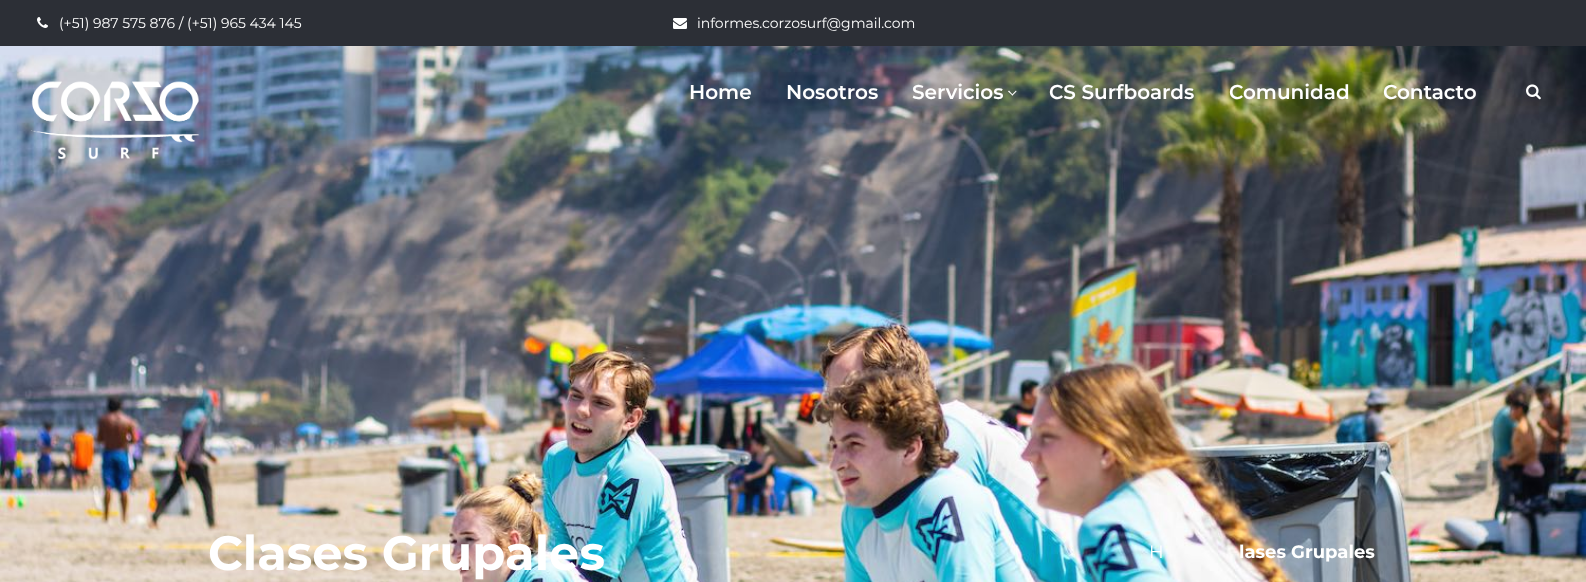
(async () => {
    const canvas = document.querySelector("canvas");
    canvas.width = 1586;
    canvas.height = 582;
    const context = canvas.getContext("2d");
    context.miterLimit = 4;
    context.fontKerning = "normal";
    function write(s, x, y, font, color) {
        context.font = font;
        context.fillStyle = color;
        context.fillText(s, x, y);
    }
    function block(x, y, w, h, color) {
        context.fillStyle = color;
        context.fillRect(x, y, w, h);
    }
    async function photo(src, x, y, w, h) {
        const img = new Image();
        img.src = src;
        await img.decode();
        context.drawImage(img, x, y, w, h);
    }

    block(0, 0, 1586, 582, "rgb(255, 255, 255)");
    block(0, 0, 1586, 46, "rgb(44, 47, 54)");
    await photo("media/1.png", 37, 17, 11, 11);
    write("(+51) 987 575 876 / (+51) 965 434 145", 59, 28, "14px Montserrat", "rgb(255, 255, 255)");
    await photo("media/2.png", 673, 18, 14, 11);
    write("informes.corzosurf@gmail.com", 697, 28, "14px Montserrat", "rgb(255, 255, 255)");
    context.save();
    context.beginPath();
    context.moveTo(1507, 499);
    context.lineTo(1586, 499);
    context.lineTo(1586, 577);
    context.lineTo(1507, 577);
    context.closePath();
    context.moveTo(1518, 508);
    context.lineTo(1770, 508);
    context.bezierCurveTo(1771, 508, 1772, 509, 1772, 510);
    context.lineTo(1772, 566);
    context.bezierCurveTo(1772, 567, 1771, 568, 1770, 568);
    context.lineTo(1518, 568);
    context.bezierCurveTo(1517, 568, 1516, 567, 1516, 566);
    context.lineTo(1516, 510);
    context.bezierCurveTo(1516, 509, 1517, 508, 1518, 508);
    context.closePath();
    context.clip("evenodd");
    context.fillStyle = "rgb(128, 128, 128)";
    context.filter = "blur(2.5px)";
    context.beginPath();
    context.roundRect(1516, 508, 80, 60, 2);
    context.fill();
    context.filter = "none";
    context.restore();
    await photo("media/5.png", 0, 46, 1586, 536);
    await photo("media/3.png", 30, 81, 170, 79);
    write("Home", 689, 99, "600 20px Montserrat", "rgb(255, 255, 255)");
    write("Nosotros", 786, 99, "600 20px Montserrat", "rgb(255, 255, 255)");
    write("Servicios", 912, 99, "600 20px Montserrat", "rgb(255, 255, 255)");
    context.beginPath();
    context.moveTo(1012.5, 95.5);
    context.lineTo(1008, 91.5);
    context.lineTo(1009, 90.5);
    context.lineTo(1013, 95);
    context.closePath();
    context.fill();
    context.beginPath();
    context.moveTo(1012.5, 95.5);
    context.lineTo(1011.5, 95);
    context.lineTo(1016, 90.5);
    context.lineTo(1016.5, 91.5);
    context.closePath();
    context.fill();
    write("CS Surfboards", 1049, 99, "600 20px Montserrat", "rgb(255, 255, 255)");
    write("Comunidad", 1229, 99, "600 20px Montserrat", "rgb(255, 255, 255)");
    write("Contacto", 1383, 99, "600 20px Montserrat", "rgb(255, 255, 255)");
    await photo("media/4.png", 1526, 84, 15, 16);
    write("Clases Grupales", 208, 570, "bold 48px Montserrat", "rgb(255, 255, 255)");
    write("H", 1149, 558, "18px Montserrat", "rgb(255, 255, 255)");
    write("lases Grupales", 1239, 558, "bold 18px Montserrat", "rgb(255, 255, 255)");
})();
